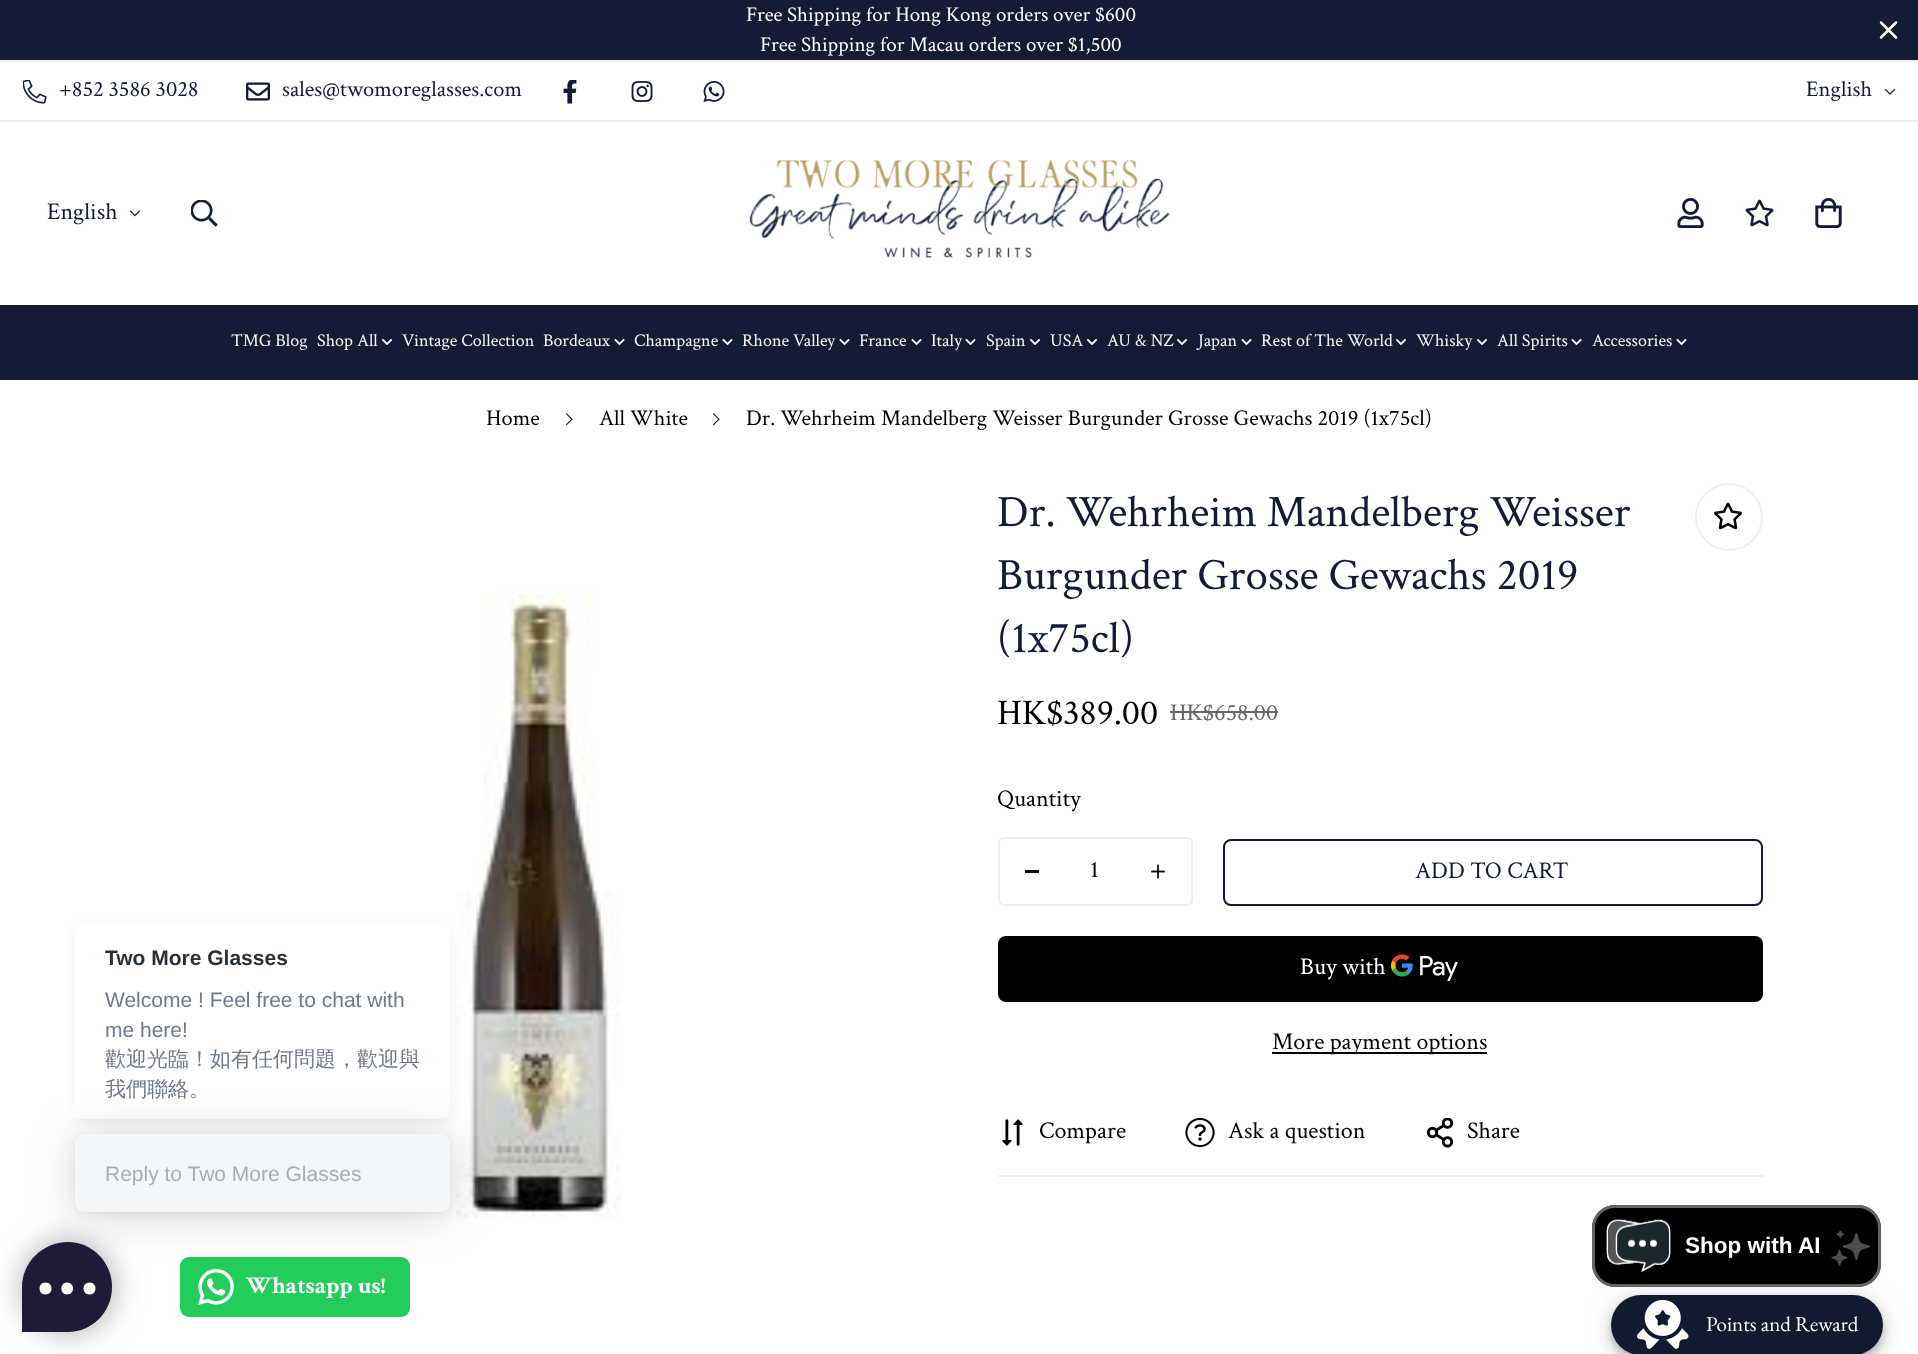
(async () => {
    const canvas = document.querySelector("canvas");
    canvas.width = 1918;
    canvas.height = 1354;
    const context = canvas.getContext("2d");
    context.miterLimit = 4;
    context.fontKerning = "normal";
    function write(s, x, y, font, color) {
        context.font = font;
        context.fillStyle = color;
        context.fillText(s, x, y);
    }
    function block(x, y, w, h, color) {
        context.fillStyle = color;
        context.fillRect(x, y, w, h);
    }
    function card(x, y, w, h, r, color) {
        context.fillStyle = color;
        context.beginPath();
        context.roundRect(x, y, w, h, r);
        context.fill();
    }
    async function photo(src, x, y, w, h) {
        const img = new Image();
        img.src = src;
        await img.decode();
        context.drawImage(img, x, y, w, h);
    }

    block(0, 0, 1918, 1354, "rgb(255, 255, 255)");
    block(0, 0, 1918, 60, "rgb(20, 28, 53)");
    block(0, 60, 1918, 2, "rgb(238, 238, 238)");
    write("Free Shipping for Hong Kong orders over $600", 746, 21, "21px Crimson Text", "rgb(255, 255, 255)");
    write("Free Shipping for Macau orders over $1,500", 760, 51, "21px Crimson Text", "rgb(255, 255, 255)");
    context.beginPath();
    context.moveTo(1881, 37.5);
    context.lineTo(1896, 22.5);
    context.moveTo(1881, 22.5);
    context.lineTo(1896, 37.5);
    context.strokeStyle = "rgb(255, 255, 255)";
    context.lineWidth = 2.5;
    context.lineCap = "round";
    context.lineJoin = "round";
    context.stroke();
    block(0, 120, 1918, 2, "rgb(238, 238, 238)");
    await photo("media/1.png", 23, 80, 24, 24);
    write("+852 3586 3028", 59, 96, "22.5px Crimson Text", "rgb(20, 28, 53)");
    await photo("media/2.png", 246, 82, 24, 19);
    write("sales@twomoreglasses.com", 282, 96, "22.5px Crimson Text", "rgb(20, 28, 53)");
    await photo("media/3.png", 563, 80, 14, 24);
    await photo("media/4.png", 631, 81, 22, 21);
    await photo("media/5.png", 703, 81, 22, 21);
    write("English", 1806, 96, "22.5px Crimson Text", "rgb(20, 28, 53)");
    await photo("media/6.png", 1884, 88, 12, 7);
    write("English", 47, 219, "24px Crimson Text", "rgb(20, 28, 53)");
    await photo("media/7.png", 129, 210, 12, 7);
    await photo("media/8.png", 191, 200, 27, 27);
    await photo("media/9.png", 749, 160, 421, 98);
    await photo("media/10.png", 1677, 198, 27, 30);
    await photo("media/11.png", 1745, 199, 29, 28);
    await photo("media/12.png", 1815, 198, 27, 30);
    block(0, 305, 1918, 75, "rgb(20, 28, 53)");
    write("TMG Blog", 231, 346, "18px Crimson Text", "rgb(248, 248, 248)");
    write("Shop All", 317, 346, "18px Crimson Text", "rgb(248, 248, 248)");
    await photo("media/13.png", 382, 339, 10, 6);
    write("Vintage Collection", 402, 346, "18px Crimson Text", "rgb(248, 248, 248)");
    write("Bordeaux", 543, 346, "18px Crimson Text", "rgb(248, 248, 248)");
    await photo("media/14.png", 614, 338, 11, 8);
    write("Champagne", 634, 346, "18px Crimson Text", "rgb(248, 248, 248)");
    await photo("media/14.png", 722, 338, 11, 8);
    write("Rhone Valley", 742, 346, "18px Crimson Text", "rgb(248, 248, 248)");
    await photo("media/14.png", 839, 338, 11, 8);
    write("France", 859, 346, "18px Crimson Text", "rgb(248, 248, 248)");
    await photo("media/14.png", 911, 338, 11, 8);
    write("Italy", 931, 346, "18px Crimson Text", "rgb(248, 248, 248)");
    await photo("media/14.png", 965, 338, 11, 8);
    write("Spain", 986, 346, "18px Crimson Text", "rgb(248, 248, 248)");
    await photo("media/13.png", 1030, 339, 10, 6);
    write("USA", 1050, 346, "18px Crimson Text", "rgb(248, 248, 248)");
    await photo("media/13.png", 1087, 339, 10, 6);
    write("AU & NZ", 1107, 346, "18px Crimson Text", "rgb(248, 248, 248)");
    await photo("media/13.png", 1177, 339, 10, 6);
    write("Japan", 1198, 346, "18px Crimson Text", "rgb(248, 248, 248)");
    await photo("media/14.png", 1241, 338, 11, 8);
    write("Rest of The World", 1261, 346, "18px Crimson Text", "rgb(248, 248, 248)");
    await photo("media/13.png", 1396, 339, 10, 6);
    write("Whisky", 1416, 346, "18px Crimson Text", "rgb(248, 248, 248)");
    await photo("media/13.png", 1477, 339, 10, 6);
    write("All Spirits", 1497, 346, "18px Crimson Text", "rgb(248, 248, 248)");
    await photo("media/14.png", 1571, 338, 11, 8);
    write("Accessories", 1592, 346, "18px Crimson Text", "rgb(248, 248, 248)");
    await photo("media/14.png", 1676, 338, 11, 8);
    await photo("media/16.png", 456, 591, 165, 627);
    context.fillStyle = "rgba(35, 47, 53, 0.09)";
    context.filter = "blur(6px)";
    context.beginPath();
    context.roundRect(75, 927, 375, 195, 9);
    context.fill();
    context.filter = "none";
    context.fillStyle = "rgb(255, 255, 255)";
    context.beginPath();
    context.roundRect(75, 924, 375, 195, [9, 9, 9, 0]);
    context.fill();
    write("Two More Glasses", 105, 965, "bold 21px Liberation Sans", "rgb(38, 50, 56)");
    write("Welcome ! Feel free to chat with", 105, 1007, "21px Liberation Sans", "rgb(110, 122, 137)");
    write("me here!", 105, 1037, "21px Liberation Sans", "rgb(110, 122, 137)");
    write("歡迎光臨！如有任何問題，歡迎與", 105, 1066, "500 21px WenQuanYi Zen Hei", "rgb(110, 122, 137)");
    write("我們聯絡。", 105, 1096, "500 21px WenQuanYi Zen Hei", "rgb(110, 122, 137)");
    context.fillStyle = "rgb(255, 255, 255)";
    context.beginPath();
    context.moveTo(75, 1119);
    context.lineTo(67.5, 1119);
    context.lineTo(75, 1099.5);
    context.closePath();
    context.fill();
    card(180, 1257, 230, 60, 9, "rgb(34, 205, 91)");
    await photo("media/25.png", 198, 1269, 36, 36);
    context.fillStyle = "rgba(0, 0, 0, 0.16)";
    context.filter = "blur(24px)";
    context.beginPath();
    context.roundRect(75, 1137, 375, 78, 9);
    context.fill();
    context.filter = "none";
    context.fillStyle = "rgba(0, 0, 0, 0.06)";
    context.filter = "blur(4.5px)";
    context.beginPath();
    context.roundRect(75, 1136, 375, 78, 9);
    context.fill();
    context.filter = "none";
    card(75, 1134, 375, 78, 9, "rgb(244, 247, 249)");
    write("Reply to Two More Glasses", 105, 1181, "21px Liberation Sans", "rgb(165, 173, 182)");
    write("Home", 486, 425, "22.5px Crimson Text", "rgb(0, 0, 0)");
    await photo("media/15.png", 566, 413, 7, 13);
    write("All White", 599, 425, "22.5px Crimson Text", "rgb(0, 0, 0)");
    await photo("media/15.png", 713, 413, 7, 13);
    write("Dr. Wehrheim Mandelberg Weisser Burgunder Grosse Gewachs 2019 (1x75cl)", 746, 425, "22.5px Crimson Text", "rgb(0, 0, 0)");
    write("Dr. Wehrheim Mandelberg Weisser", 997, 526, "45px Crimson Text", "rgb(20, 28, 53)");
    write("Burgunder Grosse Gewachs 2019", 997, 589, "45px Crimson Text", "rgb(20, 28, 53)");
    write("(1x75cl)", 997, 652, "45px Crimson Text", "rgb(20, 28, 53)");
    context.beginPath();
    context.arc(1729, 517, 33, 0, Math.PI * 2);
    context.strokeStyle = "rgb(238, 238, 238)";
    context.lineWidth = 2;
    context.stroke();
    await photo("media/17.png", 1714, 502, 28, 28);
    write("HK$389.00", 997, 724, "36px Crimson Text", "rgb(0, 0, 0)");
    write("HK$658.00", 1170, 720, "24px Crimson Text", "rgb(102, 102, 102)");
    block(1170, 711, 108, 2, "rgb(102, 102, 102)");
    write("Quantity", 997, 806, "24px Crimson Text", "rgb(0, 0, 0)");
    context.beginPath();
    context.roundRect(999, 838, 193, 67, 5);
    context.lineJoin = "miter";
    context.stroke();
    block(1025, 870, 14, 3, "rgb(0, 0, 0)");
    write("1", 1090, 877, "24px Crimson Text", "rgb(0, 0, 0)");
    await photo("media/18.png", 1151, 864, 14, 15);
    context.beginPath();
    context.roundRect(1224, 840, 538, 65, 7);
    context.strokeStyle = "rgb(20, 28, 53)";
    context.stroke();
    write("ADD TO CART", 1415, 878, "24px Crimson Text", "rgb(20, 28, 53)");
    card(998, 936, 765, 66, 8, "rgb(0, 0, 0)");
    write("Buy with", 1300, 974, "24px Crimson Text", "rgb(255, 255, 255)");
    await photo("media/19.png", 1391, 954, 67, 27);
    block(1272, 1052, 215, 2, "rgb(0, 0, 0)");
    write("More payment options", 1272, 1049, "24px Crimson Text", "rgb(0, 0, 0)");
    block(998, 1175, 765, 2, "rgb(238, 238, 238)");
    await photo("media/20.png", 1002, 1119, 21, 27);
    write("Compare", 1039, 1138, "24px Crimson Text", "rgb(0, 0, 0)");
    await photo("media/21.png", 1185, 1118, 30, 30);
    write("Ask a question", 1228, 1138, "24px Crimson Text", "rgb(0, 0, 0)");
    await photo("media/22.png", 1426, 1118, 28, 30);
    write("Share", 1467, 1138, "24px Crimson Text", "rgb(0, 0, 0)");
    context.fillStyle = "rgba(119, 119, 119, 0.64)";
    context.filter = "blur(15px)";
    context.beginPath();
    context.roundRect(23, 1242, 90, 90, 45);
    context.fill();
    context.filter = "none";
    context.fillStyle = "rgb(31, 26, 54)";
    context.beginPath();
    context.moveTo(68, 1242);
    context.bezierCurveTo(43, 1242, 22, 1262, 22, 1287);
    context.lineTo(22, 1332);
    context.lineTo(68, 1332);
    context.bezierCurveTo(92, 1332, 112, 1312, 112, 1287);
    context.bezierCurveTo(112, 1262, 92, 1242, 68, 1242);
    context.closePath();
    context.fill();
    context.fillStyle = "rgb(255, 255, 255)";
    context.beginPath();
    context.moveTo(89.5, 1282.5);
    context.bezierCurveTo(81.5, 1282.5, 81.5, 1294.5, 89.5, 1294.5);
    context.bezierCurveTo(97.5, 1294.5, 97.5, 1282.5, 89.5, 1282.5);
    context.closePath();
    context.moveTo(45.5, 1282.5);
    context.bezierCurveTo(37.5, 1282.5, 37.5, 1294.5, 45.5, 1294.5);
    context.bezierCurveTo(53.5, 1294.5, 53.5, 1282.5, 45.5, 1282.5);
    context.closePath();
    context.fill();
    context.beginPath();
    context.moveTo(67, 1282.5);
    context.bezierCurveTo(59.5, 1282.5, 59.5, 1294.5, 67, 1294.5);
    context.bezierCurveTo(75, 1294.5, 75, 1282.5, 67, 1282.5);
    context.closePath();
    context.fill();
    context.fillStyle = "rgba(0, 0, 0, 0.12)";
    context.filter = "blur(13.5px)";
    context.beginPath();
    context.roundRect(1611, 1296, 272, 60, 30);
    context.fill();
    context.filter = "none";
    context.fillStyle = "rgba(0, 0, 0, 0.14)";
    context.filter = "blur(7.5px)";
    context.beginPath();
    context.roundRect(1611, 1304, 272, 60, 30);
    context.fill();
    context.filter = "none";
    card(1592, 1205, 289, 82, 23, "rgb(0, 0, 0)");
    context.beginPath();
    context.roundRect(1593.5, 1206.5, 286, 79, 21.5);
    context.strokeStyle = "rgba(129, 126, 126, 0.78)";
    context.lineWidth = 3;
    context.stroke();
    await photo("media/23.png", 1606, 1218, 65, 55);
    write("Shop with AI", 1685, 1253, "bold 22.5px Liberation Sans", "rgb(255, 255, 255)");
    await photo("media/24.png", 1831, 1230, 39, 36);
    write("Whatsapp us!", 246, 1293, "bold 24px Crimson Text", "rgb(255, 255, 255)");
    context.fillStyle = "rgba(0, 0, 0, 0.2)";
    context.filter = "blur(4px)";
    context.beginPath();
    context.roundRect(1613, 1301, 268, 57, 28.5);
    context.fill();
    context.filter = "none";
    card(1611, 1295, 272, 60, 30, "rgb(17, 27, 48)");
    await photo("media/26.png", 1637, 1299, 52, 50);
    write("Points and Reward", 1706, 1331, "21px EB Garamond", "rgb(255, 255, 255)");
})();
